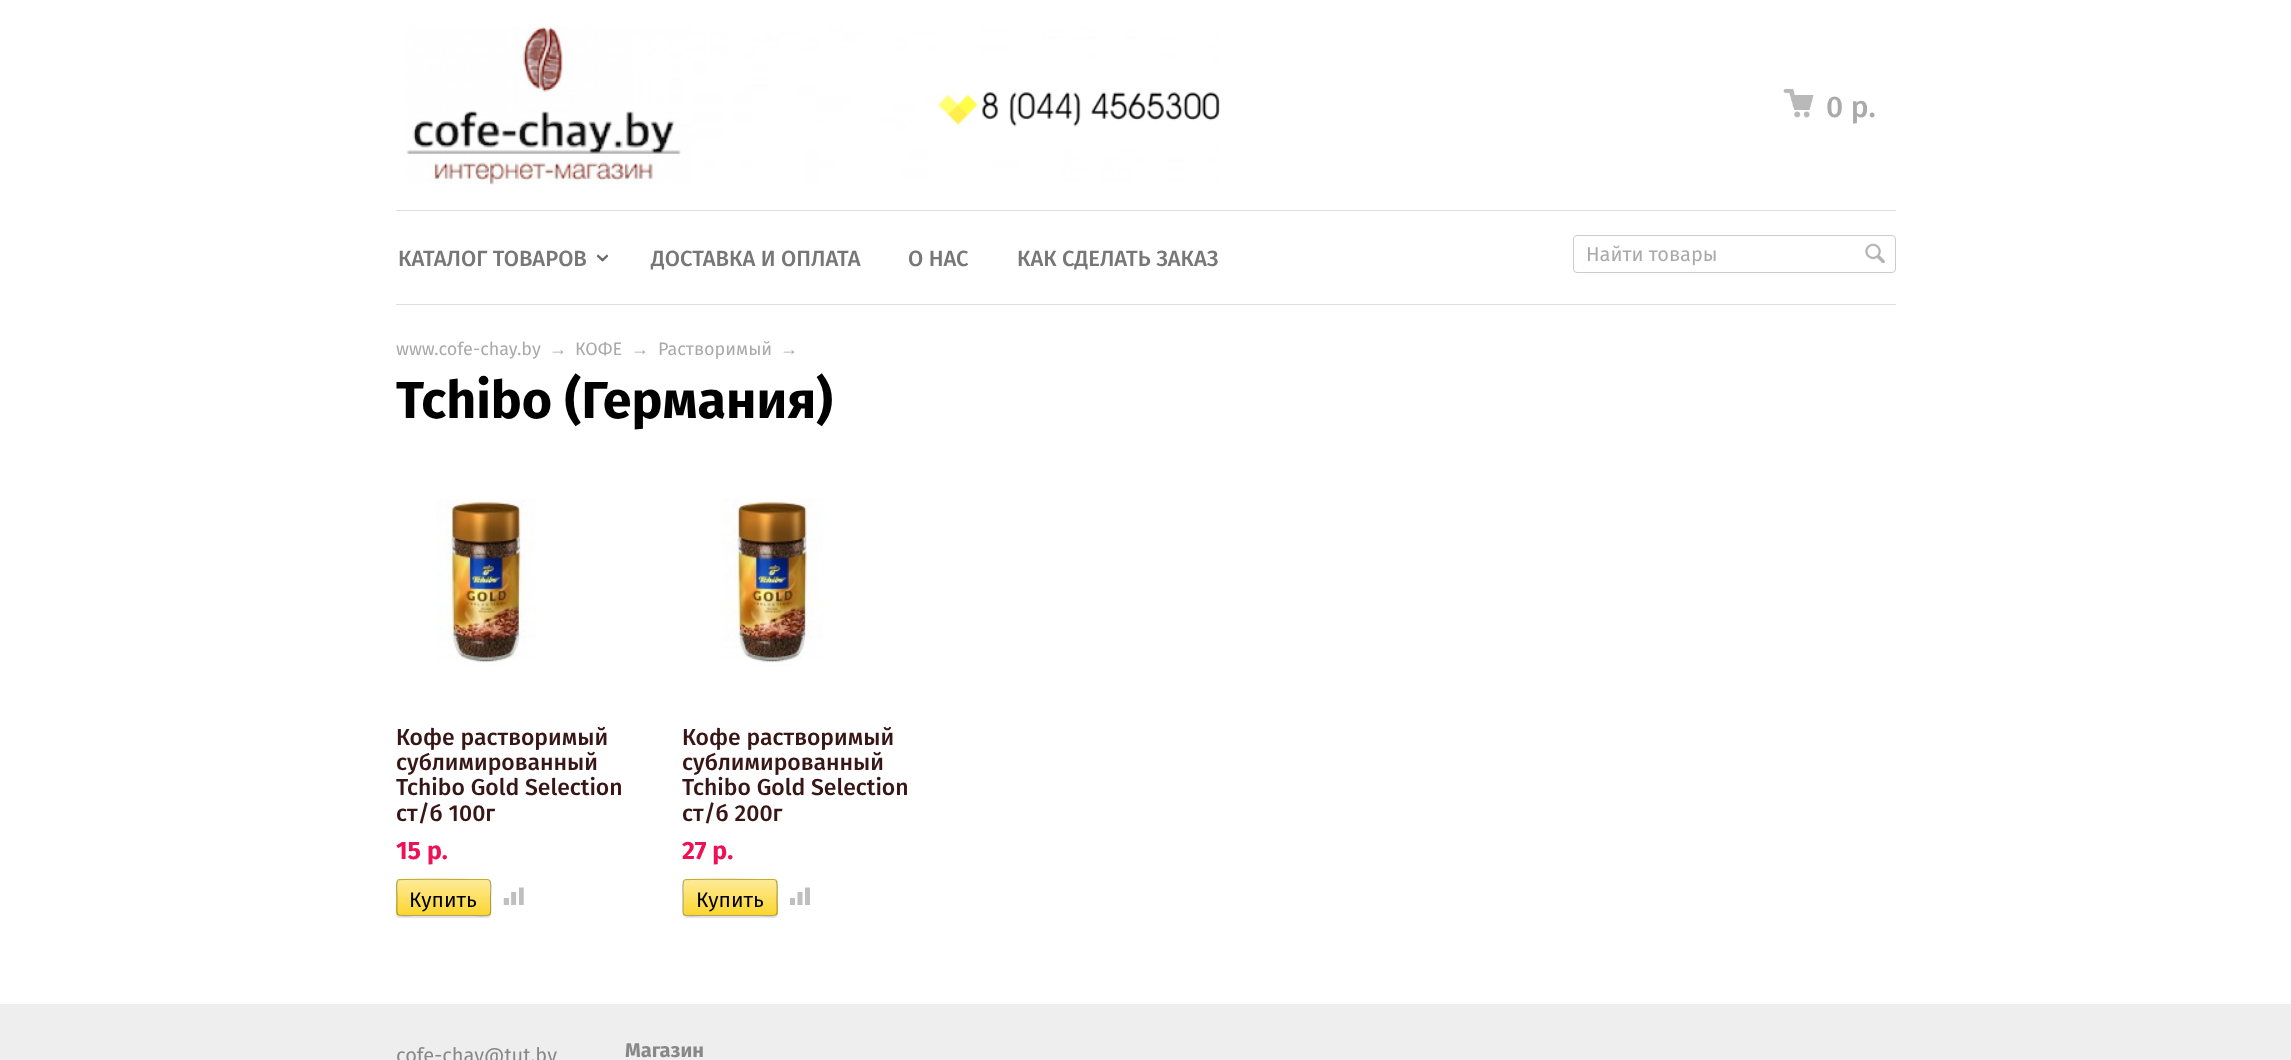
(async () => {
    const canvas = document.querySelector("canvas");
    canvas.width = 2291;
    canvas.height = 1060;
    const context = canvas.getContext("2d");
    context.miterLimit = 4;
    context.fontKerning = "normal";
    function write(s, x, y, font, color) {
        context.font = font;
        context.fillStyle = color;
        context.fillText(s, x, y);
    }
    function block(x, y, w, h, color) {
        context.fillStyle = color;
        context.fillRect(x, y, w, h);
    }
    function card(x, y, w, h, r, color) {
        context.fillStyle = color;
        context.beginPath();
        context.roundRect(x, y, w, h, r);
        context.fill();
    }
    async function photo(src, x, y, w, h) {
        const img = new Image();
        img.src = src;
        await img.decode();
        context.drawImage(img, x, y, w, h);
    }
    let gradient;

    block(0, 0, 2291, 1060, "rgb(238, 238, 238)");
    block(0, 0, 2291, 1004, "rgb(255, 255, 255)");
    await photo("media/1.png", 406, 26, 814, 159);
    await photo("media/2.png", 1783, 88, 31, 30);
    write("0 р.", 1826, 117, "500 30px Fira Sans", "rgb(170, 170, 170)");
    block(396, 210, 1500, 1, "rgb(222, 222, 222)");
    block(396, 304, 1500, 1, "rgb(222, 222, 222)");
    await photo("media/3.png", 596, 254, 13, 8);
    write("КАТАЛОГ ТОВАРОВ", 398, 266, "500 22px Fira Sans", "rgb(119, 119, 119)");
    write("ДОСТАВКА И ОПЛАТА", 651, 266, "500 22px Fira Sans", "rgb(119, 119, 119)");
    write("О НАС", 908, 266, "500 22px Fira Sans", "rgb(119, 119, 119)");
    write("КАК СДЕЛАТЬ ЗАКАЗ", 1017, 266, "500 22px Fira Sans", "rgb(119, 119, 119)");
    context.beginPath();
    context.roundRect(1573.5, 235.5, 322, 37, 3.5);
    context.strokeStyle = "rgb(204, 204, 204)";
    context.stroke();
    write("Найти товары", 1586, 261, "20px Fira Sans", "rgb(170, 170, 170)");
    await photo("media/4.png", 1865, 243, 20, 20);
    write("www.cofe-chay.by", 396, 355, "18px Fira Sans", "rgb(170, 170, 170)");
    write("→", 549, 355, "18px Liberation Sans", "rgb(170, 170, 170)");
    write("КОФЕ", 575, 355, "18px Fira Sans", "rgb(170, 170, 170)");
    write("→", 631, 355, "18px Liberation Sans", "rgb(170, 170, 170)");
    write("Растворимый", 658, 355, "18px Fira Sans", "rgb(170, 170, 170)");
    write("→", 780, 355, "18px Liberation Sans", "rgb(170, 170, 170)");
    write("Tchibo (Германия)", 396, 418, "bold 52px Fira Sans", "rgb(0, 0, 0)");
    await photo("media/5.png", 436, 499, 100, 167);
    write("Кофе растворимый", 396, 745, "500 23px Fira Sans", "rgb(57, 22, 22)");
    write("сублимированный", 396, 770, "500 23px Fira Sans", "rgb(57, 22, 22)");
    write("Tchibo Gold Selection", 396, 795, "500 23px Fira Sans", "rgb(57, 22, 22)");
    write("ст/б 100г", 396, 821, "500 23px Fira Sans", "rgb(57, 22, 22)");
    write("15 р.", 396, 859, "bold 25px Fira Sans", "rgb(238, 17, 85)");
    context.fillStyle = "rgba(0, 0, 0, 0.1)";
    context.filter = "blur(0.5px)";
    context.beginPath();
    context.roundRect(396, 880, 95, 38, 4);
    context.fill();
    context.filter = "none";
    card(396, 879, 95, 37, 4, "rgb(252, 214, 48)");
    context.save();
    context.beginPath();
    context.roundRect(396, 879, 95, 37, 4);
    context.clip();
    gradient = context.createLinearGradient(444, 880, 444, 915);
    gradient.addColorStop(0, "rgba(255, 255, 255, 0.5)");
    gradient.addColorStop(1, "rgba(255, 255, 255, 0)");
    context.fillStyle = gradient;
    context.fillRect(396, 880, 95, 33);
    gradient = context.createLinearGradient(444, 915, 444, 950);
    gradient.addColorStop(0, "rgba(255, 255, 255, 0.5)");
    gradient.addColorStop(1, "rgba(255, 255, 255, 0)");
    context.fillStyle = gradient;
    context.fillRect(396, 915, 95, 1);
    context.restore();
    context.beginPath();
    context.moveTo(398, 880.5);
    context.lineTo(398, 880);
    context.bezierCurveTo(400, 878.5, 465, 879.5, 473, 879.5);
    context.lineTo(487.5, 879.5);
    context.lineTo(489.5, 880.5);
    context.strokeStyle = "rgba(0, 0, 0, 0.2)";
    context.lineWidth = 1.2;
    context.stroke();
    context.beginPath();
    context.moveTo(489.5, 880.5);
    context.bezierCurveTo(492, 882.5, 490.5, 894.5, 490.5, 897.5);
    context.bezierCurveTo(490.5, 919, 494.5, 915.5, 473, 915.5);
    context.lineTo(414.5, 915.5);
    context.bezierCurveTo(393, 915.5, 397, 919, 397, 897.5);
    context.bezierCurveTo(397, 894.5, 395.5, 882.5, 398, 880.5);
    context.strokeStyle = "rgba(0, 0, 0, 0.3)";
    context.stroke();
    write("Купить", 409, 907, "21px Fira Sans", "rgb(0, 0, 0)");
    await photo("media/6.png", 503, 887, 21, 18);
    await photo("media/7.png", 722, 498, 101, 169);
    write("Кофе растворимый", 682, 745, "500 23px Fira Sans", "rgb(57, 22, 22)");
    write("сублимированный", 682, 770, "500 23px Fira Sans", "rgb(57, 22, 22)");
    write("Tchibo Gold Selection", 682, 795, "500 23px Fira Sans", "rgb(57, 22, 22)");
    write("ст/б 200г", 682, 821, "500 23px Fira Sans", "rgb(57, 22, 22)");
    write("27 р.", 682, 859, "bold 25px Fira Sans", "rgb(238, 17, 85)");
    context.fillStyle = "rgba(0, 0, 0, 0.1)";
    context.filter = "blur(0.5px)";
    context.beginPath();
    context.roundRect(683, 880, 95, 38, 4);
    context.fill();
    context.filter = "none";
    card(683, 879, 95, 37, 4, "rgb(252, 214, 48)");
    context.save();
    context.beginPath();
    context.roundRect(683, 879, 95, 37, 4);
    context.clip();
    gradient = context.createLinearGradient(730, 880, 730, 915);
    gradient.addColorStop(0, "rgba(255, 255, 255, 0.5)");
    gradient.addColorStop(1, "rgba(255, 255, 255, 0)");
    context.fillStyle = gradient;
    context.fillRect(683, 880, 95, 33);
    gradient = context.createLinearGradient(730, 915, 730, 950);
    gradient.addColorStop(0, "rgba(255, 255, 255, 0.5)");
    gradient.addColorStop(1, "rgba(255, 255, 255, 0)");
    context.fillStyle = gradient;
    context.fillRect(683, 915, 95, 1);
    context.restore();
    context.beginPath();
    context.moveTo(684, 880.5);
    context.lineTo(684.5, 880);
    context.bezierCurveTo(686.5, 878.5, 751, 879.5, 759, 879.5);
    context.lineTo(774, 879.5);
    context.lineTo(776, 880.5);
    context.strokeStyle = "rgba(0, 0, 0, 0.2)";
    context.stroke();
    context.beginPath();
    context.moveTo(776, 880.5);
    context.bezierCurveTo(778, 882.5, 777, 894.5, 777, 897.5);
    context.bezierCurveTo(777, 919, 781, 915.5, 759, 915.5);
    context.lineTo(701, 915.5);
    context.bezierCurveTo(679, 915.5, 683, 919, 683, 897.5);
    context.bezierCurveTo(683, 894.5, 682, 882.5, 684, 880.5);
    context.strokeStyle = "rgba(0, 0, 0, 0.3)";
    context.stroke();
    write("Купить", 696, 907, "21px Fira Sans", "rgb(0, 0, 0)");
    await photo("media/8.png", 790, 887, 20, 18);
    write("cofe-chay@tut.by", 396, 1062, "20px Fira Sans", "rgb(136, 136, 136)");
    write("Магазин", 625, 1057, "bold 20px Fira Sans", "rgb(136, 136, 136)");
})();
